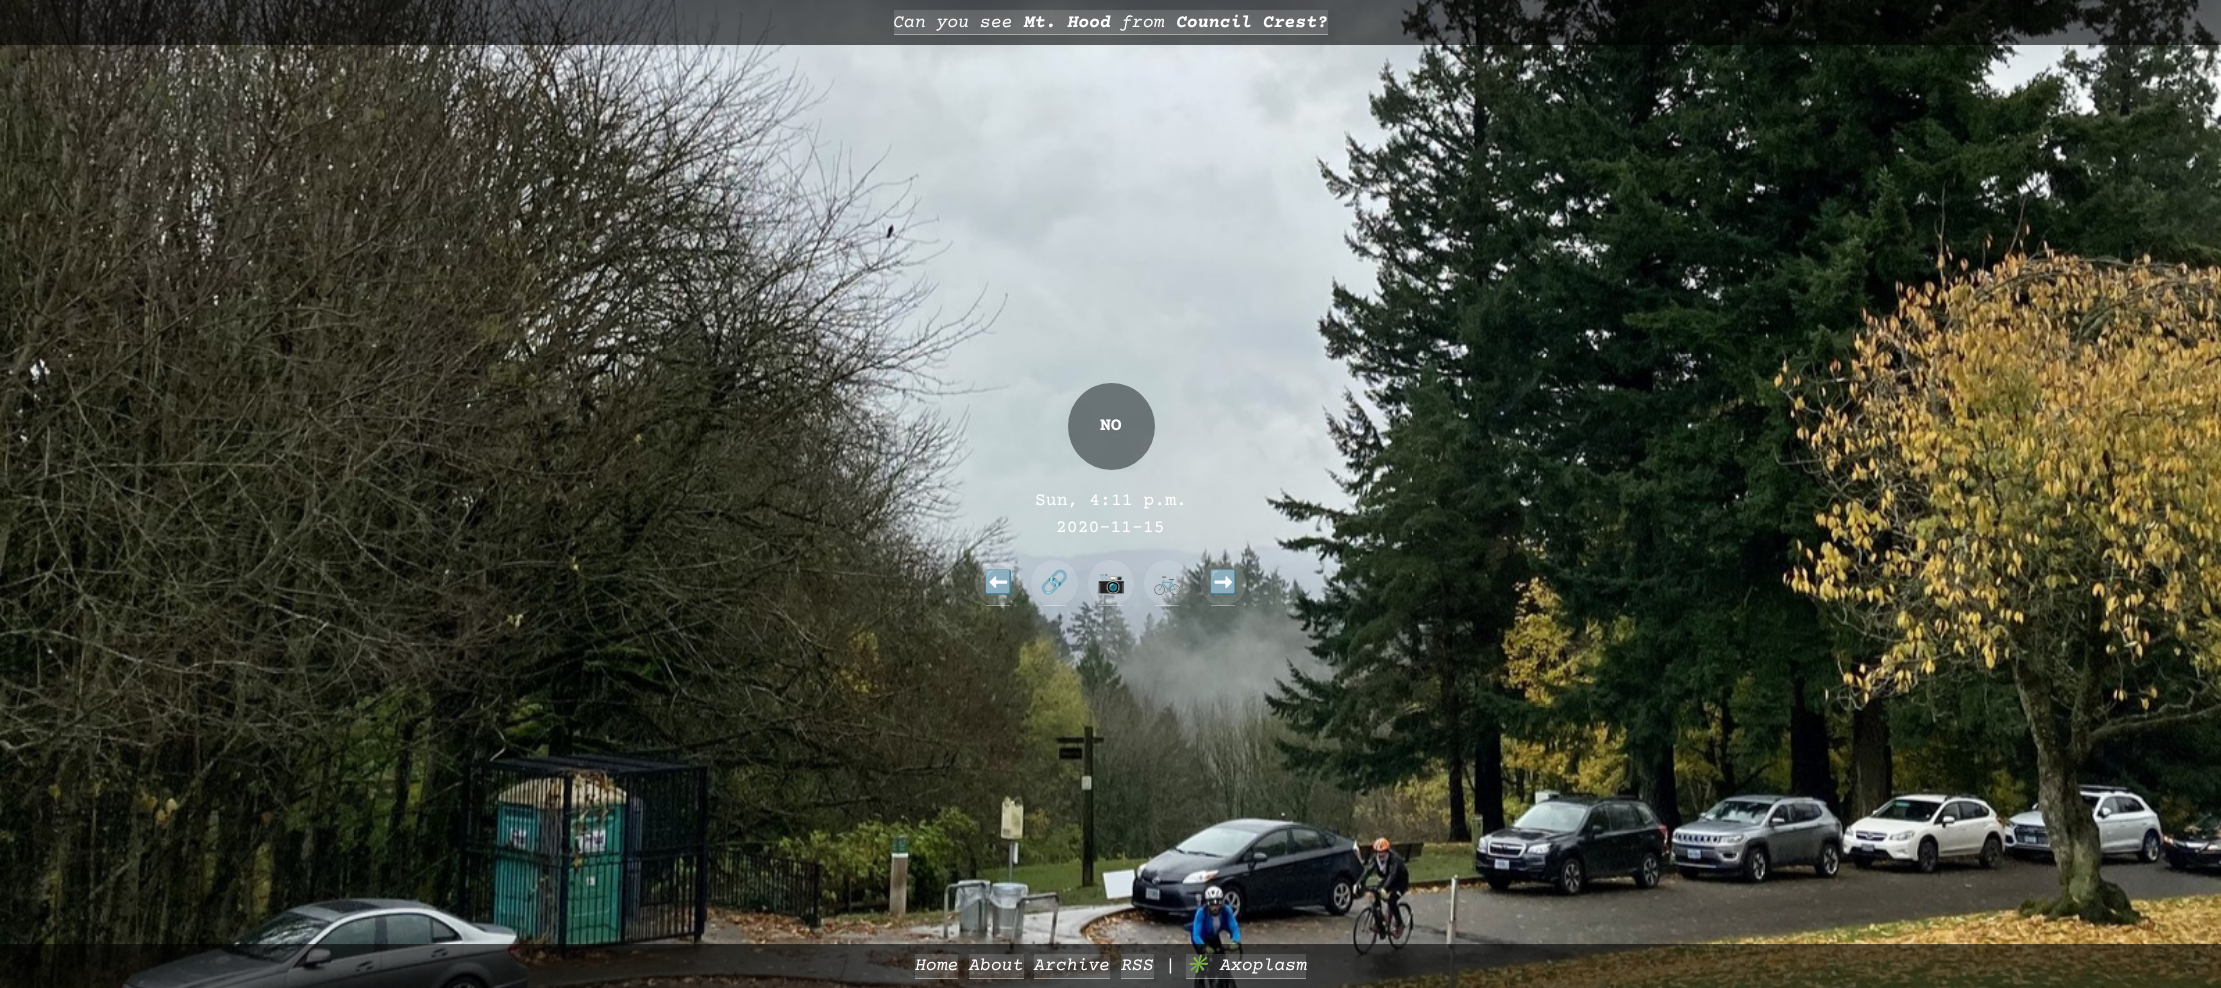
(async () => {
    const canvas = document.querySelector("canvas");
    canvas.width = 2221;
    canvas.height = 988;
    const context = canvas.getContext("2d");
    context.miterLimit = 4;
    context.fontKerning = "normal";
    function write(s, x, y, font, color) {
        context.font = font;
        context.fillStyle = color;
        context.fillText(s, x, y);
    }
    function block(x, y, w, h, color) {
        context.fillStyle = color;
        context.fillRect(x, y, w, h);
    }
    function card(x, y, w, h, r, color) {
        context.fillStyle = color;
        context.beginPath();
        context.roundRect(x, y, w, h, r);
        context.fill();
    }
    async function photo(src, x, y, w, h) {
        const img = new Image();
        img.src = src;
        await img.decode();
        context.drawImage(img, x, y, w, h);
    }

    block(0, 0, 2221, 988, "rgb(255, 255, 255)");
    await photo("media/1.png", 0, 0, 2221, 988);
    block(0, 0, 2221, 45, "rgba(0, 0, 0, 0.6)");
    block(894, 10, 130, 25, "rgba(255, 255, 255, 0.15)");
    write("Can you see", 893, 27, "italic 18.1px Courier Prime", "rgb(255, 255, 255)");
    block(894, 34, 130, 1, "rgba(255, 255, 255, 0.4)");
    block(1024, 10, 87, 25, "rgba(255, 255, 255, 0.15)");
    write("Mt. Hood", 1024, 27, "italic bold 18.1px Courier Prime", "rgb(255, 255, 255)");
    block(1024, 34, 87, 1, "rgba(255, 255, 255, 0.4)");
    block(1111, 10, 65, 25, "rgba(255, 255, 255, 0.15)");
    write("from", 1121, 27, "italic 18.1px Courier Prime", "rgb(255, 255, 255)");
    block(1111, 34, 65, 1, "rgba(255, 255, 255, 0.4)");
    block(1176, 10, 152, 25, "rgba(255, 255, 255, 0.15)");
    write("Council Crest?", 1176, 27, "italic bold 18.1px Courier Prime", "rgb(255, 255, 255)");
    block(1176, 34, 152, 1, "rgba(255, 255, 255, 0.4)");
    context.fillStyle = "rgba(46, 53, 56, 0.6)";
    context.beginPath();
    context.arc(1111.5, 426.5, 43.5, 0, Math.PI * 2);
    context.fill();
    write("NO", 1100, 430, "bold 18.1px Courier Prime", "rgb(255, 255, 255)");
    write("Sun, 4:11 p.m.", 1035, 505, "18.1px Courier Prime", "rgb(255, 255, 255)");
    write("2020-11-15", 1056, 532, "18.1px Courier Prime", "rgb(255, 255, 255)");
    context.fillStyle = "rgba(255, 255, 255, 0.15)";
    context.beginPath();
    context.arc(998, 583, 23, 0, Math.PI * 2);
    context.fill();
    block(986, 605, 24, 1, "rgba(255, 255, 255, 0.4)");
    write("⬅️", 984, 590, "23px Noto Color Emoji", "rgb(255, 255, 255)");
    card(1031, 560, 47, 46, 23, "rgba(255, 255, 255, 0.15)");
    block(1043, 605, 23, 1, "rgba(255, 255, 255, 0.4)");
    write("🔗", 1040, 590, "23px Noto Color Emoji", "rgb(255, 255, 255)");
    context.fillStyle = "rgba(255, 255, 255, 0.15)";
    context.beginPath();
    context.arc(1111, 583, 23, 0, Math.PI * 2);
    context.fill();
    block(1099, 605, 24, 1, "rgba(255, 255, 255, 0.4)");
    write("📷", 1097, 590, "23px Noto Color Emoji", "rgb(255, 255, 255)");
    context.fillStyle = "rgba(255, 255, 255, 0.15)";
    context.beginPath();
    context.arc(1167, 583, 23, 0, Math.PI * 2);
    context.fill();
    block(1155, 605, 24, 1, "rgba(255, 255, 255, 0.4)");
    write("🚲", 1153, 590, "23px Noto Color Emoji", "rgb(255, 255, 255)");
    context.fillStyle = "rgba(255, 255, 255, 0.15)";
    context.beginPath();
    context.arc(1223, 583, 23, 0, Math.PI * 2);
    context.fill();
    block(1211, 605, 24, 1, "rgba(255, 255, 255, 0.4)");
    write("➡️", 1209, 590, "23px Noto Color Emoji", "rgb(255, 255, 255)");
    block(0, 944, 2221, 44, "rgba(0, 0, 0, 0.6)");
    block(915, 954, 43, 25, "rgba(255, 255, 255, 0.15)");
    write("Home", 915, 970, "italic 18.1px Courier Prime", "rgb(255, 255, 255)");
    block(915, 978, 43, 1, "rgba(255, 255, 255, 0.4)");
    block(969, 954, 55, 25, "rgba(255, 255, 255, 0.15)");
    write("About", 969, 970, "italic 18.1px Courier Prime", "rgb(255, 255, 255)");
    block(969, 978, 55, 1, "rgba(255, 255, 255, 0.4)");
    block(1034, 954, 76, 25, "rgba(255, 255, 255, 0.15)");
    write("Archive", 1034, 970, "italic 18.1px Courier Prime", "rgb(255, 255, 255)");
    block(1034, 978, 76, 1, "rgba(255, 255, 255, 0.4)");
    block(1121, 954, 33, 25, "rgba(255, 255, 255, 0.15)");
    write("RSS", 1121, 970, "italic 18.1px Courier Prime", "rgb(255, 255, 255)");
    block(1121, 978, 33, 1, "rgba(255, 255, 255, 0.4)");
    write("|", 1165, 970, "18.1px Courier Prime", "rgb(255, 255, 255)");
    block(1186, 954, 120, 25, "rgba(255, 255, 255, 0.15)");
    write("✳️", 1186, 970, "italic 18.1px Noto Color Emoji", "rgb(255, 255, 255)");
    write("Axoplasm", 1220, 970, "italic 18.1px Courier Prime", "rgb(255, 255, 255)");
    block(1186, 978, 120, 1, "rgba(255, 255, 255, 0.4)");
})();
